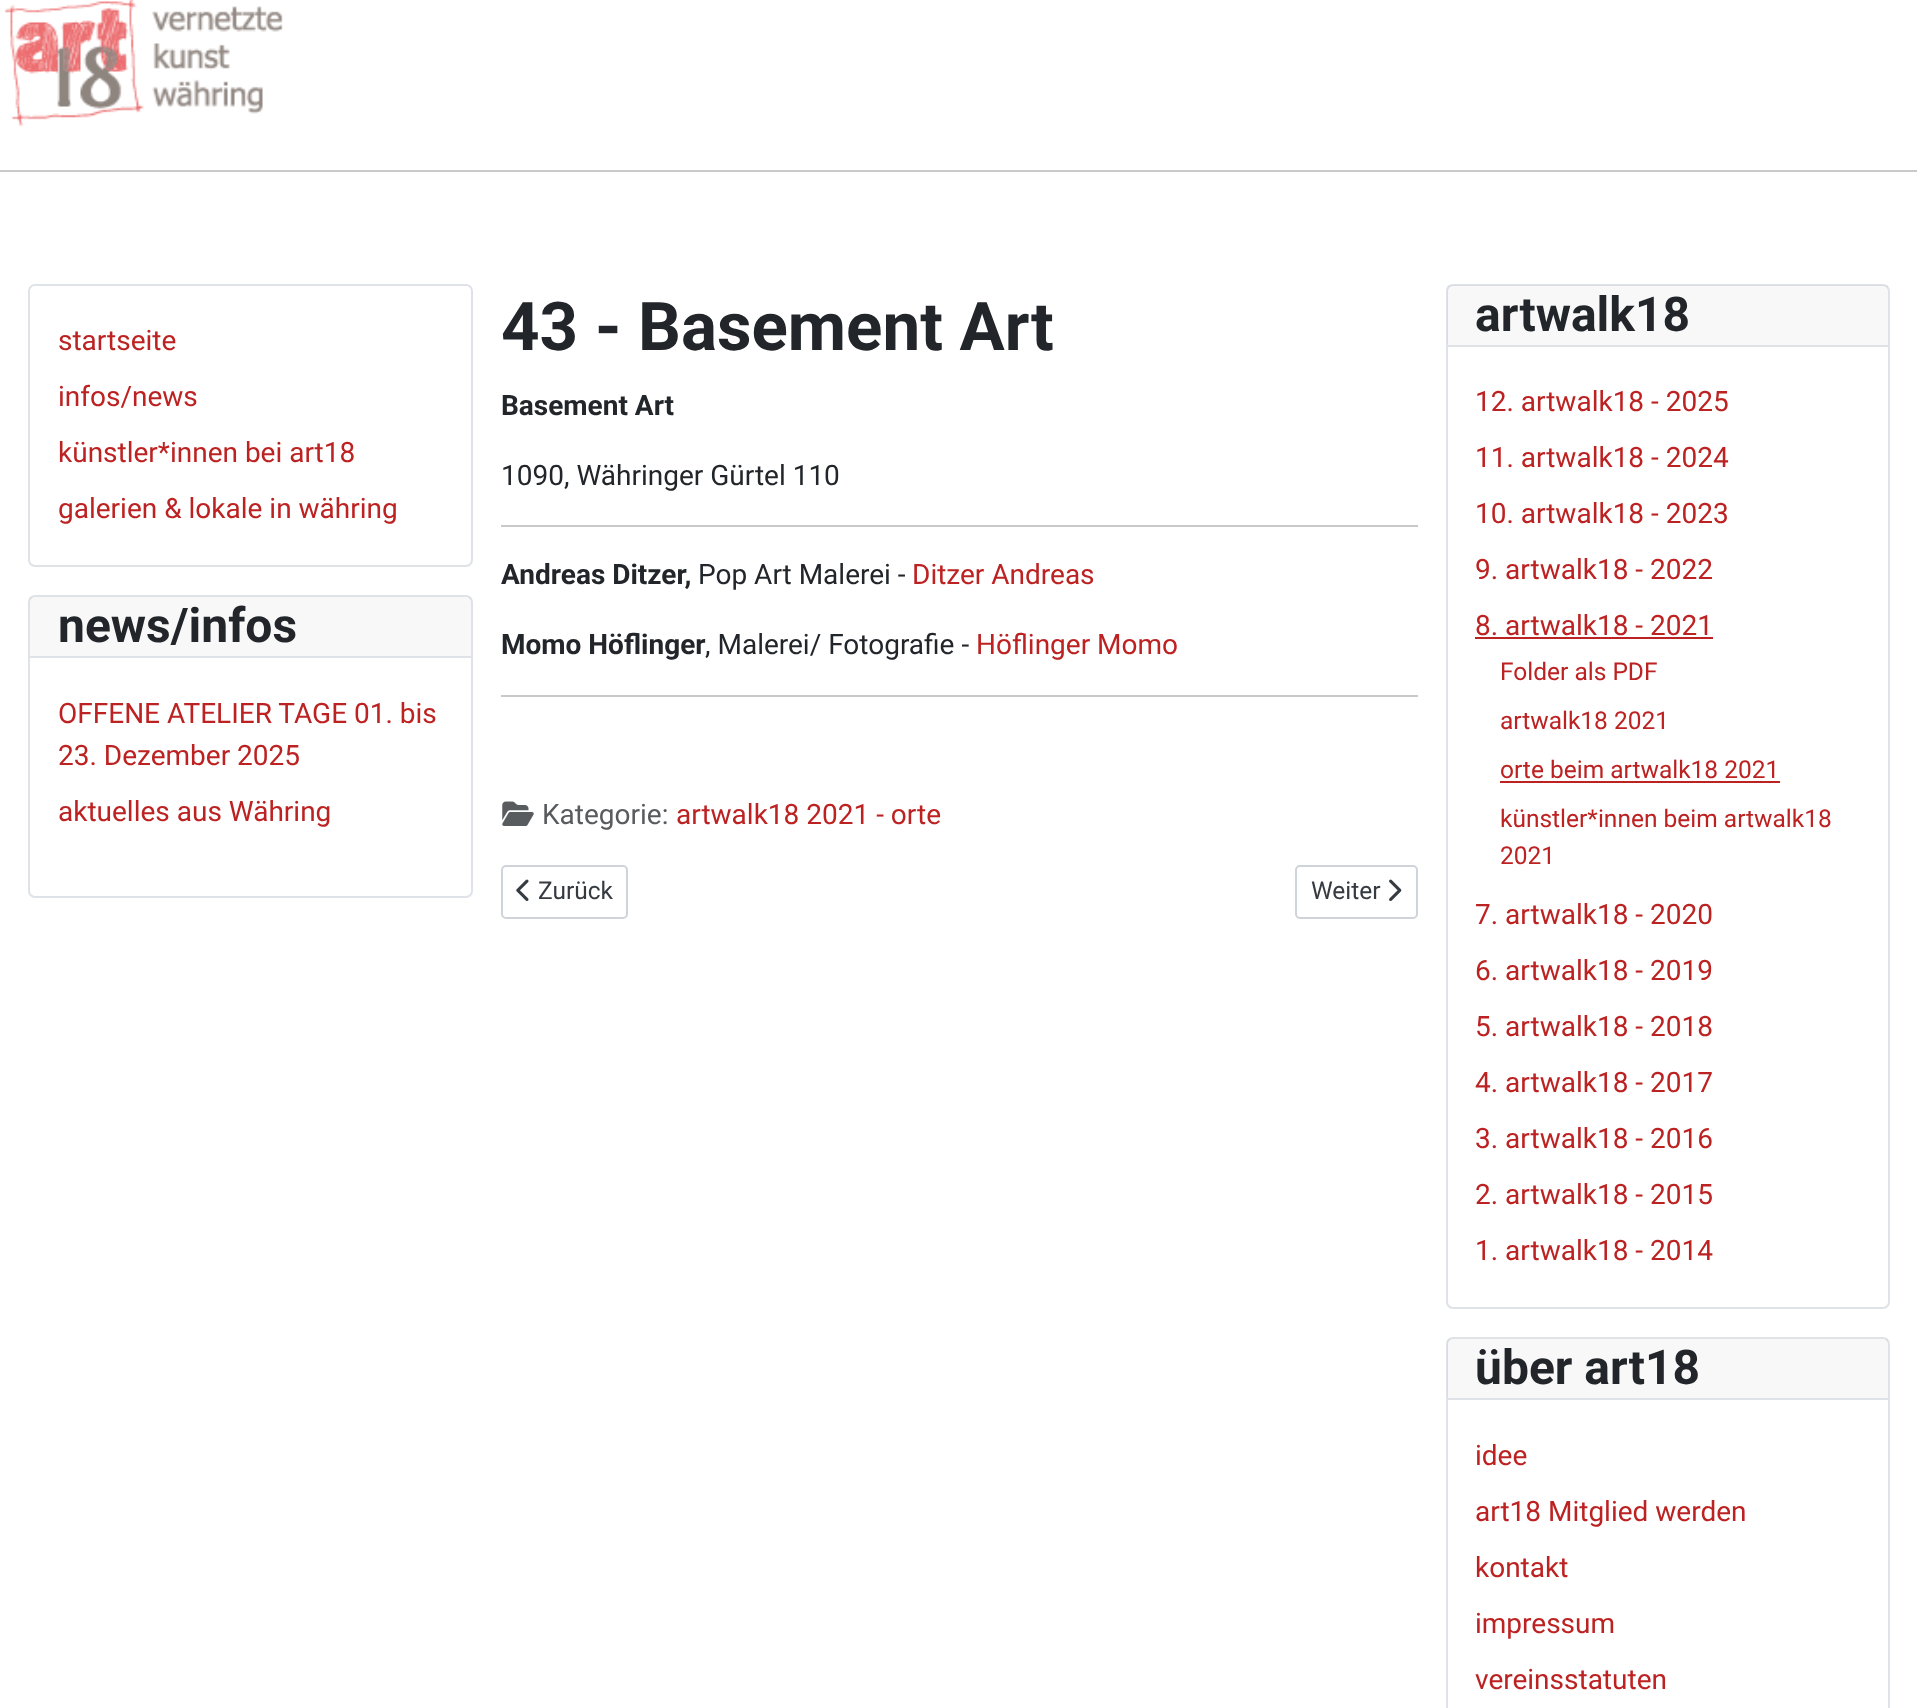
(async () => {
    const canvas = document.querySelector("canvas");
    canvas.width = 1917;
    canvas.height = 1708;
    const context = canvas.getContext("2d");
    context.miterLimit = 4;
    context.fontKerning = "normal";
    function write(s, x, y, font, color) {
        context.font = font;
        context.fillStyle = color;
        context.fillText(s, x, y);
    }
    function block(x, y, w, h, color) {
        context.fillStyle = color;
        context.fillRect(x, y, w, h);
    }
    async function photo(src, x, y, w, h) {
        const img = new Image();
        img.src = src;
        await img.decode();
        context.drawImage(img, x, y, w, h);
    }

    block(0, 0, 1917, 1708, "rgb(255, 255, 255)");
    await photo("media/1.png", 4, 0, 279, 127);
    block(0, 170, 1917, 2, "rgb(200, 201, 202)");
    context.beginPath();
    context.roundRect(29, 285, 443, 281, 6);
    context.strokeStyle = "rgb(223, 227, 231)";
    context.lineWidth = 2;
    context.stroke();
    write("startseite", 58, 350, "28px Roboto", "rgb(189, 34, 34)");
    write("infos/news", 58, 406, "28px Roboto", "rgb(189, 34, 34)");
    write("künstler*innen bei art18", 58, 462, "28px Roboto", "rgb(189, 34, 34)");
    write("galerien & lokale in währing", 58, 518, "28px Roboto", "rgb(189, 34, 34)");
    context.beginPath();
    context.roundRect(29, 596, 443, 301, 6);
    context.stroke();
    block(30, 597, 441, 59, "rgba(34, 38, 42, 0.03)");
    block(30, 656, 441, 2, "rgb(223, 227, 231)");
    write("news/infos", 58, 642, "bold 48px Roboto", "rgb(34, 38, 42)");
    write("OFFENE ATELIER TAGE 01. bis", 58, 723, "28px Roboto", "rgb(189, 34, 34)");
    write("23. Dezember 2025", 58, 765, "28px Roboto", "rgb(189, 34, 34)");
    write("aktuelles aus Währing", 58, 821, "28px Roboto", "rgb(189, 34, 34)");
    write("43 - Basement Art", 501, 350, "bold 67.25px Roboto", "rgb(34, 38, 42)");
    write("Basement Art", 501, 415, "bold 28px Roboto", "rgb(34, 38, 42)");
    write("1090, Währinger Gürtel 110", 501, 485, "28px Roboto", "rgb(34, 38, 42)");
    block(501, 525, 917, 2, "rgb(200, 201, 202)");
    write("Andreas Ditzer,", 501, 584, "bold 28px Roboto", "rgb(34, 38, 42)");
    write("Pop Art Malerei -", 698, 584, "28px Roboto", "rgb(34, 38, 42)");
    write("Ditzer Andreas", 912, 584, "28px Roboto", "rgb(189, 34, 34)");
    write("Momo Höflinger", 501, 654, "bold 28px Roboto", "rgb(34, 38, 42)");
    write(", Malerei/ Fotografie -", 705, 654, "28px Roboto", "rgb(34, 38, 42)");
    write("Höflinger Momo", 976, 654, "28px Roboto", "rgb(189, 34, 34)");
    block(501, 695, 917, 2, "rgb(200, 201, 202)");
    await photo("media/2.png", 502, 801, 32, 25);
    write("Kategorie:", 542, 824, "28px Roboto", "rgb(89, 92, 95)");
    write("artwalk18 2021 - orte", 676, 824, "28px Roboto", "rgb(189, 34, 34)");
    context.beginPath();
    context.roundRect(502, 866, 125, 52, 4);
    context.strokeStyle = "rgb(206, 212, 218)";
    context.stroke();
    await photo("media/3.png", 516, 879, 13, 22);
    write("Zurück", 538, 899, "24.5px Roboto", "rgb(53, 59, 65)");
    context.beginPath();
    context.roundRect(1296, 866, 121, 52, 4);
    context.stroke();
    write("Weiter", 1311, 899, "24.5px Roboto", "rgb(53, 59, 65)");
    await photo("media/4.png", 1389, 879, 13, 22);
    context.beginPath();
    context.roundRect(1447, 285, 442, 1023, 6);
    context.strokeStyle = "rgb(223, 227, 231)";
    context.stroke();
    block(1447, 285, 441, 60, "rgba(34, 38, 42, 0.03)");
    block(1447, 345, 441, 2, "rgb(223, 227, 231)");
    write("artwalk18", 1475, 331, "bold 48px Roboto", "rgb(34, 38, 42)");
    write("12. artwalk18 - 2025", 1475, 411, "28px Roboto", "rgb(189, 34, 34)");
    write("11. artwalk18 - 2024", 1475, 467, "28px Roboto", "rgb(189, 34, 34)");
    write("10. artwalk18 - 2023", 1475, 523, "28px Roboto", "rgb(189, 34, 34)");
    write("9. artwalk18 - 2022", 1475, 579, "28px Roboto", "rgb(189, 34, 34)");
    write("8. artwalk18 - 2021", 1475, 635, "28px Roboto", "rgb(189, 34, 34)");
    block(1475, 637, 238, 2, "rgb(189, 34, 34)");
    write("Folder als PDF", 1500, 680, "24.5px Roboto", "rgb(189, 34, 34)");
    write("artwalk18 2021", 1500, 729, "24.5px Roboto", "rgb(189, 34, 34)");
    write("orte beim artwalk18 2021", 1500, 778, "24.5px Roboto", "rgb(189, 34, 34)");
    block(1500, 781, 280, 2, "rgb(189, 34, 34)");
    write("künstler*innen beim artwalk18", 1500, 827, "24.5px Roboto", "rgb(189, 34, 34)");
    write("2021", 1500, 864, "24.5px Roboto", "rgb(189, 34, 34)");
    write("7. artwalk18 - 2020", 1475, 924, "28px Roboto", "rgb(189, 34, 34)");
    write("6. artwalk18 - 2019", 1475, 980, "28px Roboto", "rgb(189, 34, 34)");
    write("5. artwalk18 - 2018", 1475, 1036, "28px Roboto", "rgb(189, 34, 34)");
    write("4. artwalk18 - 2017", 1475, 1092, "28px Roboto", "rgb(189, 34, 34)");
    write("3. artwalk18 - 2016", 1475, 1148, "28px Roboto", "rgb(189, 34, 34)");
    write("2. artwalk18 - 2015", 1475, 1204, "28px Roboto", "rgb(189, 34, 34)");
    write("1. artwalk18 - 2014", 1475, 1260, "28px Roboto", "rgb(189, 34, 34)");
    context.beginPath();
    context.roundRect(1447, 1338, 442, 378, 6);
    context.stroke();
    block(1447, 1339, 441, 59, "rgba(34, 38, 42, 0.03)");
    block(1447, 1398, 441, 2, "rgb(223, 227, 231)");
    write("über art18", 1475, 1384, "bold 48px Roboto", "rgb(34, 38, 42)");
    write("idee", 1475, 1465, "28px Roboto", "rgb(189, 34, 34)");
    write("art18 Mitglied werden", 1475, 1521, "28px Roboto", "rgb(189, 34, 34)");
    write("kontakt", 1475, 1577, "28px Roboto", "rgb(189, 34, 34)");
    write("impressum", 1475, 1633, "28px Roboto", "rgb(189, 34, 34)");
    write("vereinsstatuten", 1475, 1689, "28px Roboto", "rgb(189, 34, 34)");
})();
